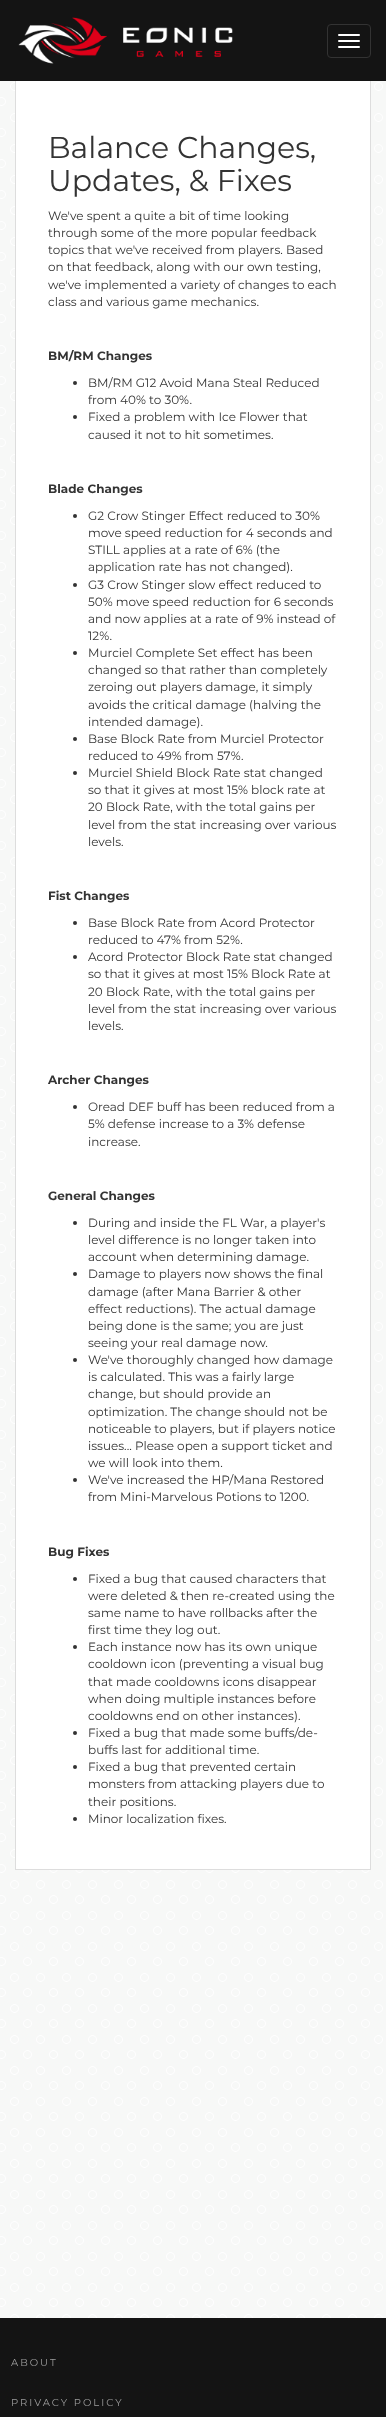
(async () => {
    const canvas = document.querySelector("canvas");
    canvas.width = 386;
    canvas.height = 2417;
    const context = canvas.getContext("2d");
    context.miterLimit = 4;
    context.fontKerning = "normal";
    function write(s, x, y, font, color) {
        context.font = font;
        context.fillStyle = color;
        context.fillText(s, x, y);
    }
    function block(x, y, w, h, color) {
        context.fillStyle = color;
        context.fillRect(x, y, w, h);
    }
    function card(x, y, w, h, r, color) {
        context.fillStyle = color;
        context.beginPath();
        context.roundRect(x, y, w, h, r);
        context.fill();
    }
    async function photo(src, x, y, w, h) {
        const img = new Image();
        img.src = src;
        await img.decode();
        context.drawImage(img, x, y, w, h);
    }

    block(0, 0, 386, 2417, "rgb(255, 255, 255)");
    await photo("media/1.png", 0, 81, 386, 2237);
    block(370, 79, 1, 1791, "rgb(221, 221, 221)");
    block(15, 1869, 356, 1, "rgb(221, 221, 221)");
    block(15, 79, 1, 1791, "rgb(221, 221, 221)");
    block(0, 0, 386, 81, "rgb(20, 20, 20)");
    await photo("media/2.png", 18, 17, 215, 47);
    context.beginPath();
    context.roundRect(327.5, 24.5, 43, 33, 3.5);
    context.strokeStyle = "rgb(51, 51, 51)";
    context.stroke();
    card(338, 34, 22, 2, 1, "rgb(255, 255, 255)");
    card(338, 40, 22, 2, 1, "rgb(255, 255, 255)");
    card(338, 46, 22, 2, 1, "rgb(255, 255, 255)");
    block(16, 81, 354, 1788, "rgb(255, 255, 255)");
    write("Balance Changes,", 48, 158, "30px Montserrat", "rgb(51, 51, 51)");
    write("Updates, & Fixes", 48, 191, "30px Montserrat", "rgb(51, 51, 51)");
    write("We've spent a quite a bit of time looking", 48, 220, "12px Montserrat", "rgb(51, 51, 51)");
    write("through some of the more popular feedback", 48, 237, "12px Montserrat", "rgb(51, 51, 51)");
    write("topics that we've received from players. Based", 48, 254, "12px Montserrat", "rgb(51, 51, 51)");
    write("on that feedback, along with our own testing,", 48, 271, "12px Montserrat", "rgb(51, 51, 51)");
    write("we've implemented a variety of changes to each", 48, 289, "12px Montserrat", "rgb(51, 51, 51)");
    write("class and various game mechanics.", 48, 306, "12px Montserrat", "rgb(51, 51, 51)");
    write("BM/RM Changes", 48, 360, "bold 12px Montserrat", "rgb(51, 51, 51)");
    context.beginPath();
    context.arc(75, 383, 2, 0, Math.PI * 2);
    context.fill();
    write("BM/RM G12 Avoid Mana Steal Reduced", 88, 387, "12px Montserrat", "rgb(51, 51, 51)");
    write("from 40% to 30%.", 88, 404, "12px Montserrat", "rgb(51, 51, 51)");
    context.beginPath();
    context.arc(75, 417, 2, 0, Math.PI * 2);
    context.fill();
    write("Fixed a problem with Ice Flower that", 88, 421, "12px Montserrat", "rgb(51, 51, 51)");
    write("caused it not to hit sometimes.", 88, 439, "12px Montserrat", "rgb(51, 51, 51)");
    write("Blade Changes", 48, 493, "bold 12px Montserrat", "rgb(51, 51, 51)");
    context.beginPath();
    context.arc(75, 516, 2, 0, Math.PI * 2);
    context.fill();
    write("G2 Crow Stinger Effect reduced to 30%", 88, 520, "12px Montserrat", "rgb(51, 51, 51)");
    write("move speed reduction for 4 seconds and", 88, 537, "12px Montserrat", "rgb(51, 51, 51)");
    write("STILL applies at a rate of 6% (the", 88, 554, "12px Montserrat", "rgb(51, 51, 51)");
    write("application rate has not changed).", 88, 571, "12px Montserrat", "rgb(51, 51, 51)");
    context.beginPath();
    context.arc(75, 585, 2, 0, Math.PI * 2);
    context.fill();
    write("G3 Crow Stinger slow effect reduced to", 88, 589, "12px Montserrat", "rgb(51, 51, 51)");
    write("50% move speed reduction for 6 seconds", 88, 606, "12px Montserrat", "rgb(51, 51, 51)");
    write("and now applies at a rate of 9% instead of", 88, 623, "12px Montserrat", "rgb(51, 51, 51)");
    write("12%.", 88, 640, "12px Montserrat", "rgb(51, 51, 51)");
    context.beginPath();
    context.arc(75, 653, 2, 0, Math.PI * 2);
    context.fill();
    write("Murciel Complete Set effect has been", 88, 657, "12px Montserrat", "rgb(51, 51, 51)");
    write("changed so that rather than completely", 88, 674, "12px Montserrat", "rgb(51, 51, 51)");
    write("zeroing out players damage, it simply", 88, 691, "12px Montserrat", "rgb(51, 51, 51)");
    write("avoids the critical damage (halving the", 88, 709, "12px Montserrat", "rgb(51, 51, 51)");
    write("intended damage).", 88, 726, "12px Montserrat", "rgb(51, 51, 51)");
    context.beginPath();
    context.arc(75, 739, 2, 0, Math.PI * 2);
    context.fill();
    write("Base Block Rate from Murciel Protector", 88, 743, "12px Montserrat", "rgb(51, 51, 51)");
    write("reduced to 49% from 57%.", 88, 760, "12px Montserrat", "rgb(51, 51, 51)");
    context.beginPath();
    context.arc(75, 773, 2, 0, Math.PI * 2);
    context.fill();
    write("Murciel Shield Block Rate stat changed", 88, 777, "12px Montserrat", "rgb(51, 51, 51)");
    write("so that it gives at most 15% block rate at", 88, 794, "12px Montserrat", "rgb(51, 51, 51)");
    write("20 Block Rate, with the total gains per", 88, 811, "12px Montserrat", "rgb(51, 51, 51)");
    write("level from the stat increasing over various", 88, 829, "12px Montserrat", "rgb(51, 51, 51)");
    write("levels.", 88, 846, "12px Montserrat", "rgb(51, 51, 51)");
    write("Fist Changes", 48, 900, "bold 12px Montserrat", "rgb(51, 51, 51)");
    context.beginPath();
    context.arc(75, 923, 2, 0, Math.PI * 2);
    context.fill();
    write("Base Block Rate from Acord Protector", 88, 927, "12px Montserrat", "rgb(51, 51, 51)");
    write("reduced to 47% from 52%.", 88, 944, "12px Montserrat", "rgb(51, 51, 51)");
    context.beginPath();
    context.arc(75, 957, 2, 0, Math.PI * 2);
    context.fill();
    write("Acord Protector Block Rate stat changed", 88, 961, "12px Montserrat", "rgb(51, 51, 51)");
    write("so that it gives at most 15% Block Rate at", 88, 978, "12px Montserrat", "rgb(51, 51, 51)");
    write("20 Block Rate, with the total gains per", 88, 996, "12px Montserrat", "rgb(51, 51, 51)");
    write("level from the stat increasing over various", 88, 1013, "12px Montserrat", "rgb(51, 51, 51)");
    write("levels.", 88, 1030, "12px Montserrat", "rgb(51, 51, 51)");
    write("Archer Changes", 48, 1084, "bold 12px Montserrat", "rgb(51, 51, 51)");
    context.beginPath();
    context.arc(75, 1107, 2, 0, Math.PI * 2);
    context.fill();
    write("Oread DEF buff has been reduced from a", 88, 1111, "12px Montserrat", "rgb(51, 51, 51)");
    write("5% defense increase to a 3% defense", 88, 1128, "12px Montserrat", "rgb(51, 51, 51)");
    write("increase.", 88, 1146, "12px Montserrat", "rgb(51, 51, 51)");
    write("General Changes", 48, 1200, "bold 12px Montserrat", "rgb(51, 51, 51)");
    context.beginPath();
    context.arc(75, 1223, 2, 0, Math.PI * 2);
    context.fill();
    write("During and inside the FL War, a player's", 88, 1227, "12px Montserrat", "rgb(51, 51, 51)");
    write("level difference is no longer taken into", 88, 1244, "12px Montserrat", "rgb(51, 51, 51)");
    write("account when determining damage.", 88, 1261, "12px Montserrat", "rgb(51, 51, 51)");
    context.beginPath();
    context.arc(75, 1274, 2, 0, Math.PI * 2);
    context.fill();
    write("Damage to players now shows the final", 88, 1278, "12px Montserrat", "rgb(51, 51, 51)");
    write("damage (after Mana Barrier & other", 88, 1296, "12px Montserrat", "rgb(51, 51, 51)");
    write("effect reductions). The actual damage", 88, 1313, "12px Montserrat", "rgb(51, 51, 51)");
    write("being done is the same; you are just", 88, 1330, "12px Montserrat", "rgb(51, 51, 51)");
    write("seeing your real damage now.", 88, 1347, "12px Montserrat", "rgb(51, 51, 51)");
    context.beginPath();
    context.arc(75, 1360, 2, 0, Math.PI * 2);
    context.fill();
    write("We've thoroughly changed how damage", 88, 1364, "12px Montserrat", "rgb(51, 51, 51)");
    write("is calculated. This was a fairly large", 88, 1381, "12px Montserrat", "rgb(51, 51, 51)");
    write("change, but should provide an", 88, 1398, "12px Montserrat", "rgb(51, 51, 51)");
    write("optimization. The change should not be", 88, 1416, "12px Montserrat", "rgb(51, 51, 51)");
    write("noticeable to players, but if players notice", 88, 1433, "12px Montserrat", "rgb(51, 51, 51)");
    write("issues... Please open a support ticket and", 88, 1450, "12px Montserrat", "rgb(51, 51, 51)");
    write("we will look into them.", 88, 1467, "12px Montserrat", "rgb(51, 51, 51)");
    context.beginPath();
    context.arc(75, 1480, 2, 0, Math.PI * 2);
    context.fill();
    write("We've increased the HP/Mana Restored", 88, 1484, "12px Montserrat", "rgb(51, 51, 51)");
    write("from Mini-Marvelous Potions to 1200.", 88, 1501, "12px Montserrat", "rgb(51, 51, 51)");
    write("Bug Fixes", 48, 1556, "bold 12px Montserrat", "rgb(51, 51, 51)");
    context.beginPath();
    context.arc(75, 1579, 2, 0, Math.PI * 2);
    context.fill();
    write("Fixed a bug that caused characters that", 88, 1583, "12px Montserrat", "rgb(51, 51, 51)");
    write("were deleted & then re-created using the", 88, 1600, "12px Montserrat", "rgb(51, 51, 51)");
    write("same name to have rollbacks after the", 88, 1617, "12px Montserrat", "rgb(51, 51, 51)");
    write("first time they log out.", 88, 1634, "12px Montserrat", "rgb(51, 51, 51)");
    context.beginPath();
    context.arc(75, 1647, 2, 0, Math.PI * 2);
    context.fill();
    write("Each instance now has its own unique", 88, 1651, "12px Montserrat", "rgb(51, 51, 51)");
    write("cooldown icon (preventing a visual bug", 88, 1668, "12px Montserrat", "rgb(51, 51, 51)");
    write("that made cooldowns icons disappear", 88, 1686, "12px Montserrat", "rgb(51, 51, 51)");
    write("when doing multiple instances before", 88, 1703, "12px Montserrat", "rgb(51, 51, 51)");
    write("cooldowns end on other instances).", 88, 1720, "12px Montserrat", "rgb(51, 51, 51)");
    context.beginPath();
    context.arc(75, 1733, 2, 0, Math.PI * 2);
    context.fill();
    write("Fixed a bug that made some buffs/de-", 88, 1737, "12px Montserrat", "rgb(51, 51, 51)");
    write("buffs last for additional time.", 88, 1754, "12px Montserrat", "rgb(51, 51, 51)");
    context.beginPath();
    context.arc(75, 1767, 2, 0, Math.PI * 2);
    context.fill();
    write("Fixed a bug that prevented certain", 88, 1771, "12px Montserrat", "rgb(51, 51, 51)");
    write("monsters from attacking players due to", 88, 1788, "12px Montserrat", "rgb(51, 51, 51)");
    write("their positions.", 88, 1806, "12px Montserrat", "rgb(51, 51, 51)");
    context.beginPath();
    context.arc(75, 1819, 2, 0, Math.PI * 2);
    context.fill();
    write("Minor localization fixes.", 88, 1823, "12px Montserrat", "rgb(51, 51, 51)");
    block(0, 2318, 386, 99, "rgb(20, 20, 20)");
    context.letterSpacing = "2px";
    write("ABOUT", 11, 2366, "10px Montserrat", "rgb(157, 157, 157)");
    write("PRIVACY POLICY", 11, 2406, "10px Montserrat", "rgb(157, 157, 157)");
})();
